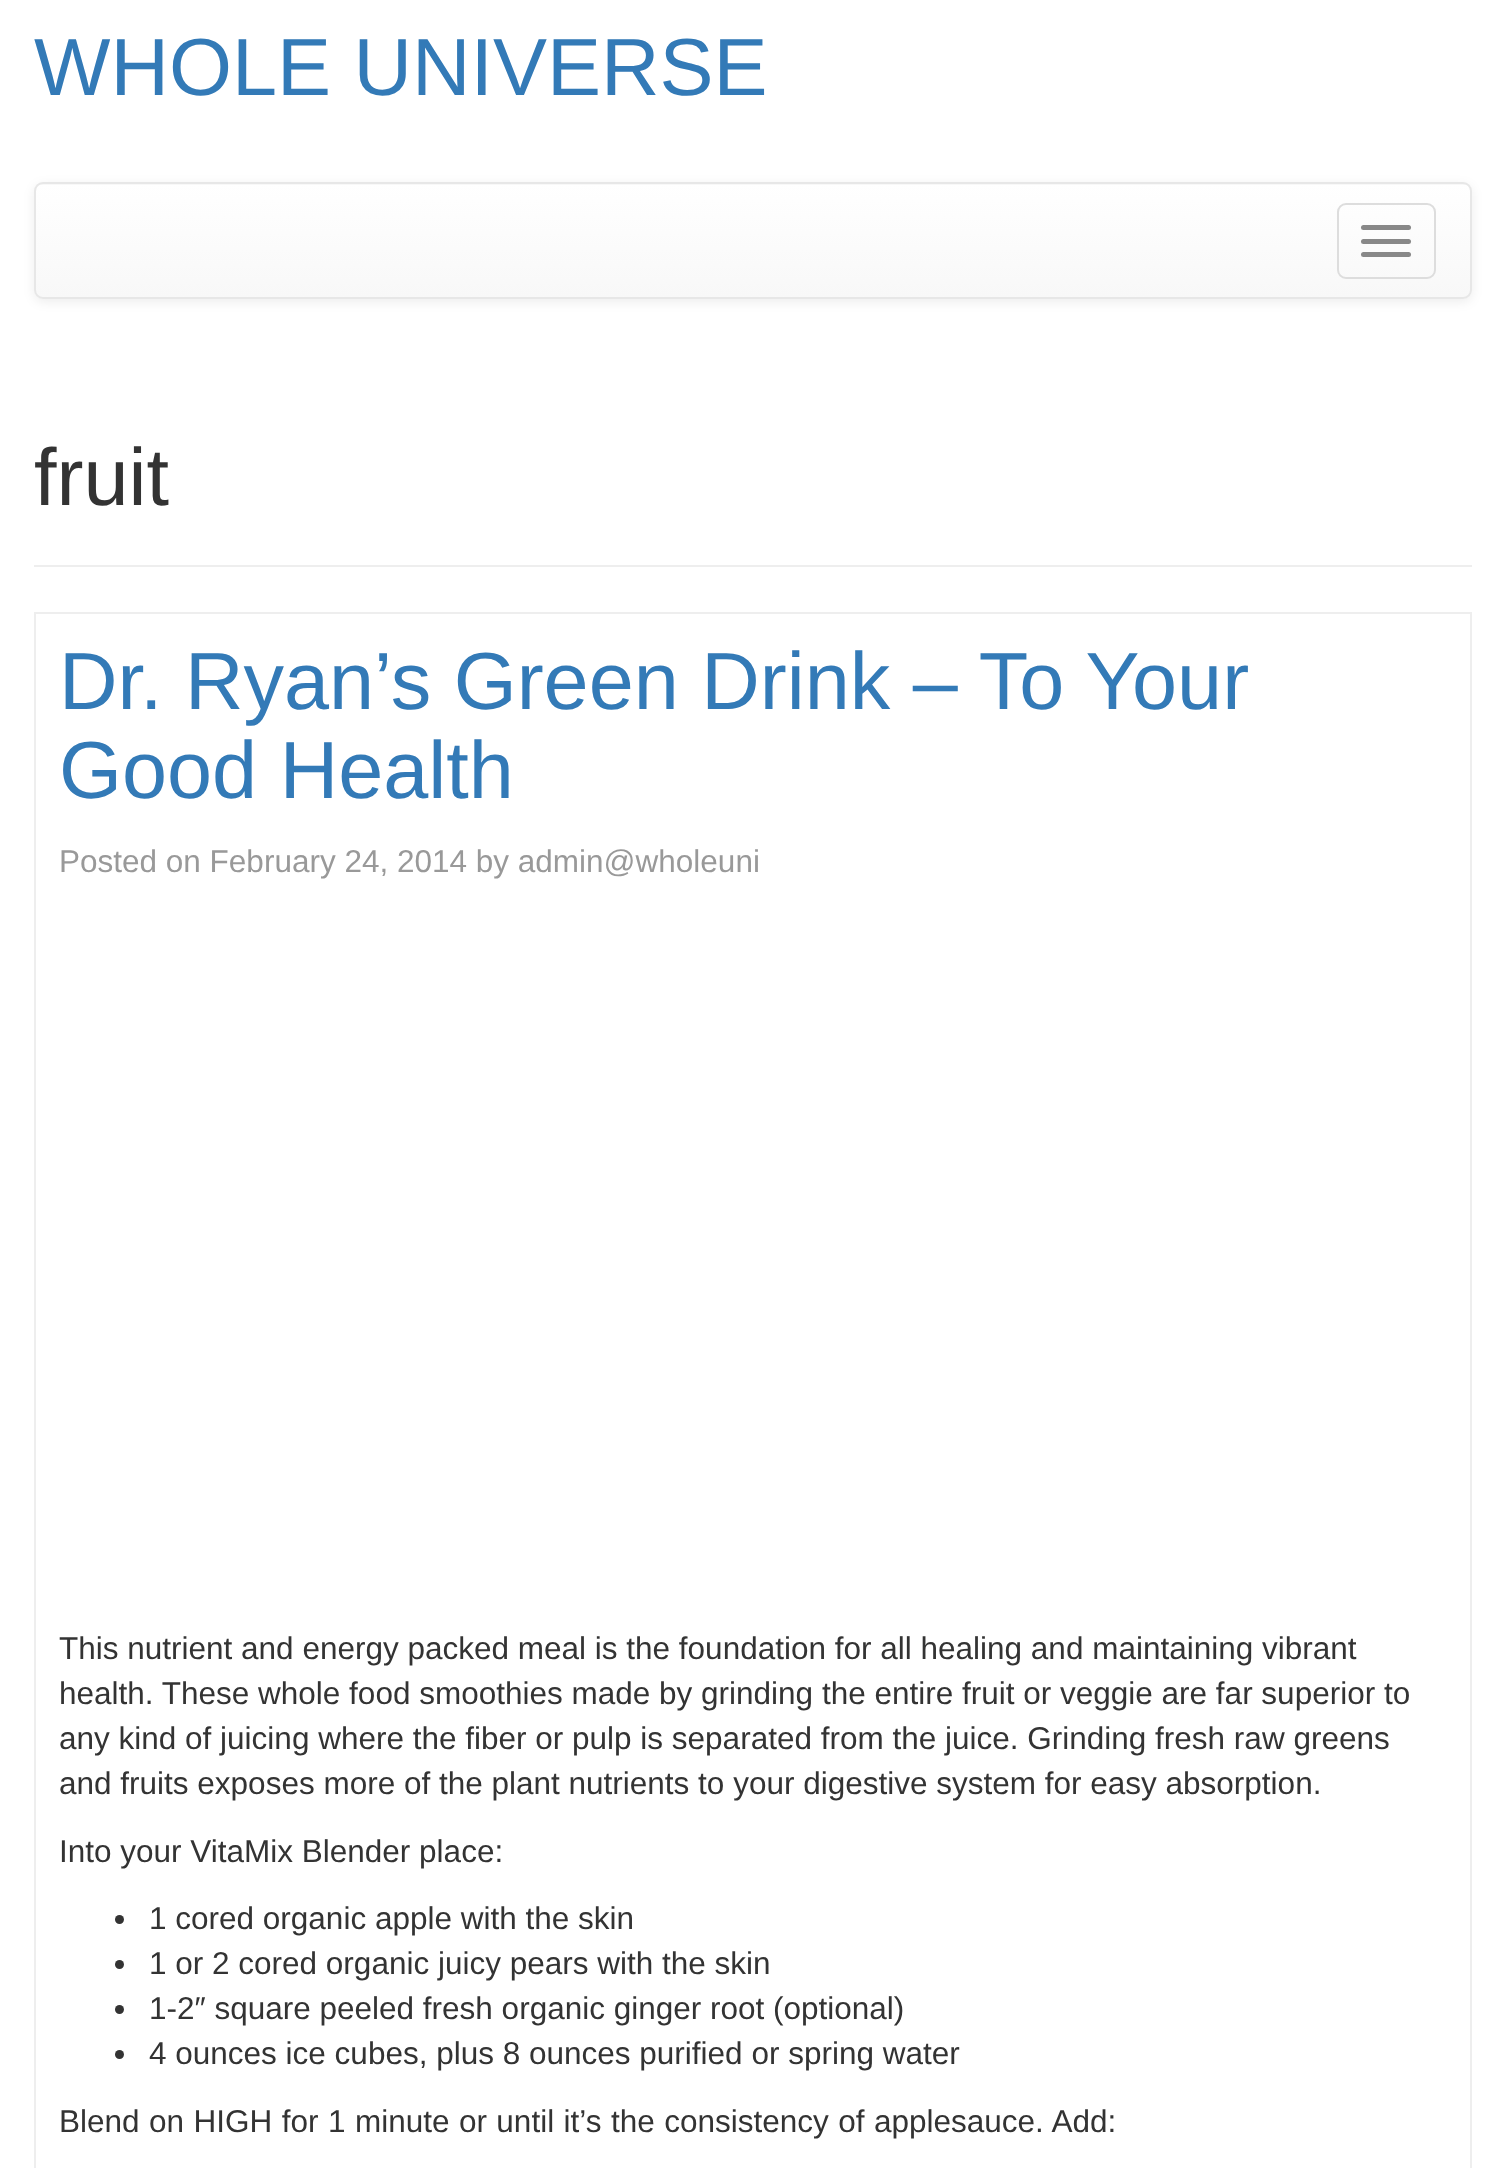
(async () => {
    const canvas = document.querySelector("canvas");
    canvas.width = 1504;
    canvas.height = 2168;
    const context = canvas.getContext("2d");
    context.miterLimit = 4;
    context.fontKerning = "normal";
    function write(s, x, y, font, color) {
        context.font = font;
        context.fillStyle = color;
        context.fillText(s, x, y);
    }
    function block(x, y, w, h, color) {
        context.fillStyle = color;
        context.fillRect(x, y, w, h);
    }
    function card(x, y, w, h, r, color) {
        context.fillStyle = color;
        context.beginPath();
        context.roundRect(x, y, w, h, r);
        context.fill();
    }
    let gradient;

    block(0, 0, 1504, 2168, "rgb(255, 255, 255)");
    write("WHOLE UNIVERSE", 34, 95, "81px Liberation Sans", "rgb(51, 122, 183)");
    context.fillStyle = "rgba(0, 0, 0, 0.07)";
    context.filter = "blur(5.5px)";
    context.beginPath();
    context.roundRect(34, 185, 1438, 117, 9);
    context.fill();
    context.filter = "none";
    card(34, 182, 1438, 117, 9, "rgb(248, 248, 248)");
    context.save();
    context.beginPath();
    context.roundRect(34, 182, 1438, 117, 9);
    context.clip();
    gradient = context.createLinearGradient(753, 184, 753, 297);
    gradient.addColorStop(0, "rgb(255, 255, 255)");
    gradient.addColorStop(1, "rgb(248, 248, 248)");
    context.fillStyle = gradient;
    context.fillRect(34, 185, 1438, 112);
    context.restore();
    context.beginPath();
    context.roundRect(35, 183, 1436, 115, 8);
    context.strokeStyle = "rgb(231, 231, 231)";
    context.lineWidth = 2;
    context.stroke();
    context.beginPath();
    context.roundRect(1338, 204, 97, 74, 8);
    context.strokeStyle = "rgb(221, 221, 221)";
    context.stroke();
    card(1361, 225, 50, 5, 2.5, "rgb(136, 136, 136)");
    card(1361, 239, 50, 5, 2.5, "rgb(136, 136, 136)");
    card(1361, 252, 50, 5, 2.5, "rgb(136, 136, 136)");
    block(34, 565, 1438, 2, "rgb(238, 238, 238)");
    write("fruit", 34, 505, "81px Liberation Sans", "rgb(51, 51, 51)");
    context.strokeStyle = "rgb(238, 238, 238)";
    context.strokeRect(35, 613, 1436, 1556);
    write("Dr. Ryan’s Green Drink – To Your", 59, 709, "81px Liberation Sans", "rgb(51, 122, 183)");
    write("Good Health", 59, 798, "81px Liberation Sans", "rgb(51, 122, 183)");
    write("Posted on February 24, 2014 by admin@wholeuni", 59, 872, "31.5px Liberation Sans", "rgb(153, 153, 153)");
    write("This nutrient and energy packed meal is the foundation for all healing and maintaining vibrant", 59, 1659, "31.5px Liberation Sans", "rgb(51, 51, 51)");
    write("health. These whole food smoothies made by grinding the entire fruit or veggie are far superior to", 59, 1704, "31.5px Liberation Sans", "rgb(51, 51, 51)");
    write("any kind of juicing where the fiber or pulp is separated from the juice. Grinding fresh raw greens", 59, 1749, "31.5px Liberation Sans", "rgb(51, 51, 51)");
    write("and fruits exposes more of the plant nutrients to your digestive system for easy absorption.", 59, 1794, "31.5px Liberation Sans", "rgb(51, 51, 51)");
    write("Into your VitaMix Blender place:", 59, 1862, "31.5px Liberation Sans", "rgb(51, 51, 51)");
    context.beginPath();
    context.arc(119.5, 1919.5, 4.5, 0, Math.PI * 2);
    context.fill();
    write("1 cored organic apple with the skin", 149, 1929, "31.5px Liberation Sans", "rgb(51, 51, 51)");
    context.beginPath();
    context.arc(119.5, 1964.5, 4.5, 0, Math.PI * 2);
    context.fill();
    write("1 or 2 cored organic juicy pears with the skin", 149, 1974, "31.5px Liberation Sans", "rgb(51, 51, 51)");
    context.beginPath();
    context.arc(119.5, 2009.5, 4.5, 0, Math.PI * 2);
    context.fill();
    write("1-2″ square peeled fresh organic ginger root (optional)", 149, 2019, "31.5px Liberation Sans", "rgb(51, 51, 51)");
    context.beginPath();
    context.arc(119.5, 2054.5, 4.5, 0, Math.PI * 2);
    context.fill();
    write("4 ounces ice cubes, plus 8 ounces purified or spring water", 149, 2064, "31.5px Liberation Sans", "rgb(51, 51, 51)");
    context.wordSpacing = "0.7px";
    write("Blend on HIGH for 1 minute or until it’s the consistency of applesauce. Add:", 59, 2132, "31.5px Liberation Sans", "rgb(51, 51, 51)");
})();
